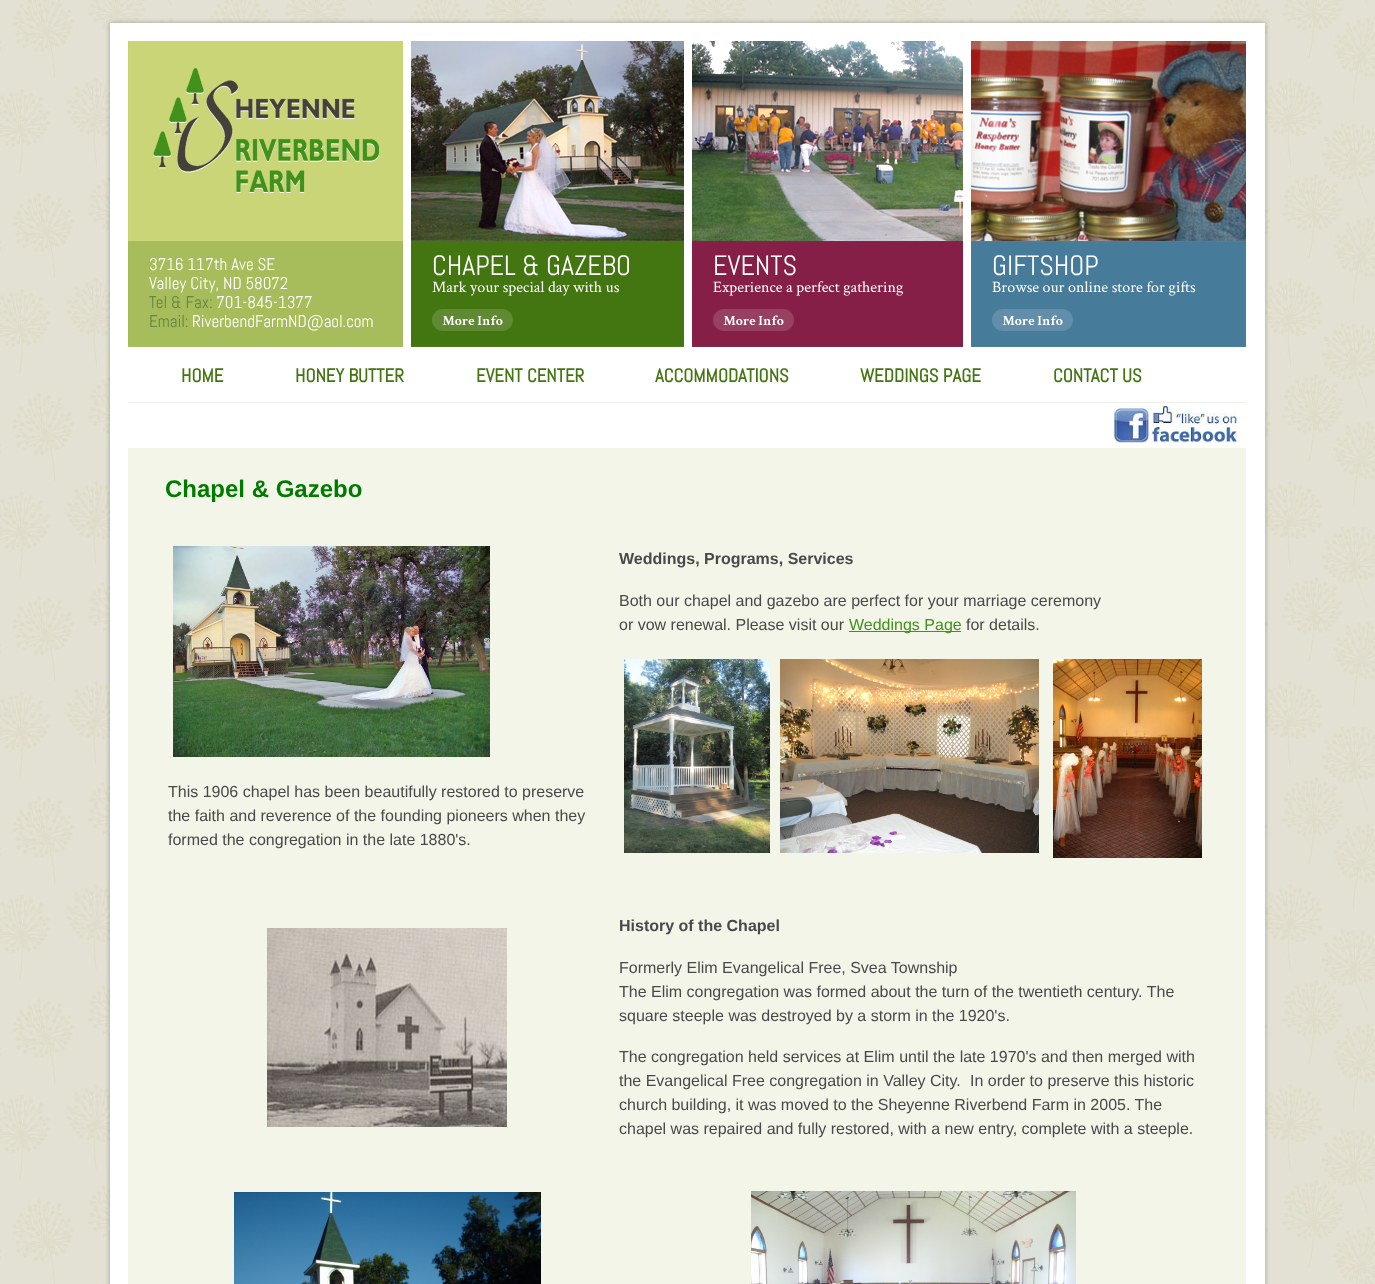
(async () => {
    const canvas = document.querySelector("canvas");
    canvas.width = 1375;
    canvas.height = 1284;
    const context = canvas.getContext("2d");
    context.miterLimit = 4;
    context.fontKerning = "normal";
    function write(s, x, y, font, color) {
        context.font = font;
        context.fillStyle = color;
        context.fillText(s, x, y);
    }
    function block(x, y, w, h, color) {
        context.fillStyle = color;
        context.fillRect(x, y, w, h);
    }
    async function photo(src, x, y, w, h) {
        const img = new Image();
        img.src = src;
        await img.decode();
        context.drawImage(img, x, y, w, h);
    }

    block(0, 0, 1375, 1284, "rgb(255, 255, 255)");
    await photo("media/1.png", 0, 0, 1375, 1284);
    await photo("media/2.png", 106, 448, 1163, 836);
    await photo("media/3.png", 105, 0, 1165, 347);
    write("3716 117th Ave SE", 149, 270, "17px Abel", "rgb(255, 255, 255)");
    write("Valley City, ND 58072", 149, 289, "17px Abel", "rgb(255, 255, 255)");
    write("Tel & Fax:", 149, 308, "17px Abel", "rgb(101, 132, 69)");
    write("701-845-1377", 216, 308, "17px Abel", "rgb(255, 255, 255)");
    write("Email:", 149, 327, "17px Abel", "rgb(101, 132, 69)");
    write("RiverbendFarmND@aol.com", 192, 327, "17px Abel", "rgb(255, 255, 255)");
    write("CHAPEL & GAZEBO", 432, 275, "28px Abel", "rgb(255, 255, 255)");
    write("Mark your special day with us", 432, 292, "16px Crimson Text", "rgb(255, 255, 255)");
    await photo("media/4.png", 432, 309, 81, 22);
    write("EVENTS", 713, 275, "28px Abel", "rgb(255, 255, 255)");
    write("Experience a perfect gathering", 713, 292, "16px Crimson Text", "rgb(255, 255, 255)");
    await photo("media/5.png", 713, 309, 81, 22);
    write("GIFTSHOP", 992, 275, "28px Abel", "rgb(255, 255, 255)");
    write("Browse our online store for gifts", 992, 292, "16px Crimson Text", "rgb(255, 255, 255)");
    await photo("media/6.png", 992, 309, 81, 22);
    await photo("media/7.png", 105, 347, 1165, 101);
    write("HOME", 181, 382, "bold 18.75px Abel", "rgb(67, 117, 16)");
    write("HONEY BUTTER", 295, 382, "bold 18.75px Abel", "rgb(67, 117, 16)");
    write("EVENT CENTER", 476, 382, "bold 18.75px Abel", "rgb(67, 117, 16)");
    write("ACCOMMODATIONS", 655, 382, "bold 18.75px Abel", "rgb(67, 117, 16)");
    write("WEDDINGS PAGE", 860, 382, "bold 18.75px Abel", "rgb(67, 117, 16)");
    write("CONTACT US", 1053, 382, "bold 18.75px Abel", "rgb(67, 117, 16)");
    await photo("media/8.png", 1114, 406, 123, 37);
    write("Chapel & Gazebo", 165, 497, "bold 24px Liberation Sans", "rgb(0, 123, 0)");
    write("Weddings, Programs, Services", 619, 564, "bold 16px Liberation Sans", "rgb(73, 73, 73)");
    write("Both our chapel and gazebo are perfect for your marriage ceremony", 619, 606, "16px Liberation Sans", "rgb(73, 73, 73)");
    write("or vow renewal. Please visit our", 619, 630, "16px Liberation Sans", "rgb(73, 73, 73)");
    block(849, 631, 112, 1, "rgb(66, 145, 26)");
    write("Weddings Page", 849, 630, "16px Liberation Sans", "rgb(66, 145, 26)");
    write("for details.", 966, 630, "16px Liberation Sans", "rgb(73, 73, 73)");
    await photo("media/9.png", 624, 659, 146, 194);
    await photo("media/10.png", 780, 659, 259, 194);
    await photo("media/11.png", 1053, 659, 149, 199);
    await photo("media/12.png", 173, 546, 317, 211);
    write("This 1906 chapel has been beautifully restored to preserve", 168, 797, "16px Liberation Sans", "rgb(73, 73, 73)");
    write("the faith and reverence of the founding pioneers when they", 168, 821, "16px Liberation Sans", "rgb(73, 73, 73)");
    write("formed the congregation in the late 1880's.", 168, 845, "16px Liberation Sans", "rgb(73, 73, 73)");
    await photo("media/13.png", 267, 928, 240, 199);
    write("History of the Chapel", 619, 931, "bold 16px Liberation Sans", "rgb(73, 73, 73)");
    write("Formerly Elim Evangelical Free, Svea Township", 619, 973, "16px Liberation Sans", "rgb(73, 73, 73)");
    write("The Elim congregation was formed about the turn of the twentieth century. The", 619, 997, "16px Liberation Sans", "rgb(73, 73, 73)");
    write("square steeple was destroyed by a storm in the 1920's.", 619, 1021, "16px Liberation Sans", "rgb(73, 73, 73)");
    write("The congregation held services at Elim until the late 1970's and then merged with", 619, 1062, "16px Liberation Sans", "rgb(73, 73, 73)");
    write("the Evangelical Free congregation in Valley City.", 619, 1086, "16px Liberation Sans", "rgb(73, 73, 73)");
    write("In order to preserve this historic", 970, 1086, "16px Liberation Sans", "rgb(73, 73, 73)");
    write("church building, it was moved to the Sheyenne Riverbend Farm in 2005. The", 619, 1110, "16px Liberation Sans", "rgb(73, 73, 73)");
    write("chapel was repaired and fully restored, with a new entry, complete with a steeple.", 619, 1134, "16px Liberation Sans", "rgb(73, 73, 73)");
    await photo("media/14.png", 234, 1192, 307, 92);
    await photo("media/15.png", 751, 1191, 325, 93);
})();
